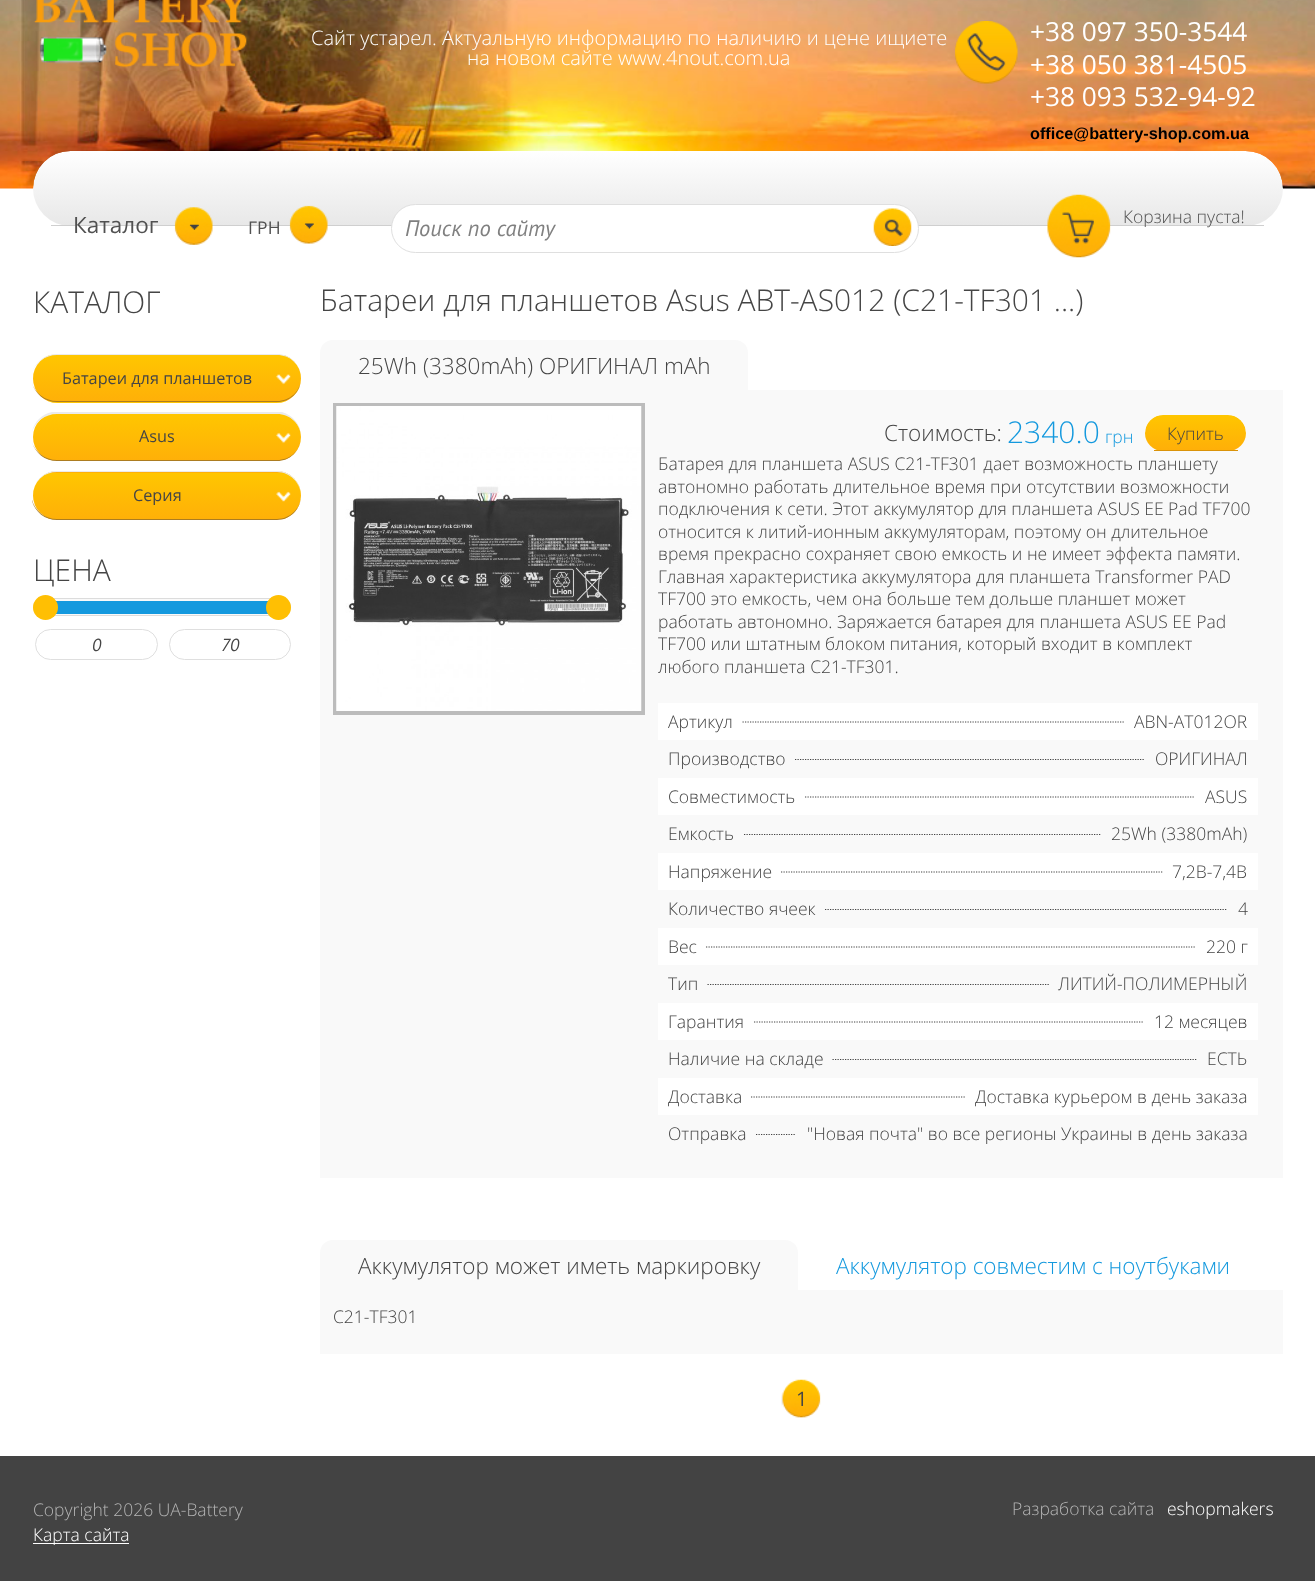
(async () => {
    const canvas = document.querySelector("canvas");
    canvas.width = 1315;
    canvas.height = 1581;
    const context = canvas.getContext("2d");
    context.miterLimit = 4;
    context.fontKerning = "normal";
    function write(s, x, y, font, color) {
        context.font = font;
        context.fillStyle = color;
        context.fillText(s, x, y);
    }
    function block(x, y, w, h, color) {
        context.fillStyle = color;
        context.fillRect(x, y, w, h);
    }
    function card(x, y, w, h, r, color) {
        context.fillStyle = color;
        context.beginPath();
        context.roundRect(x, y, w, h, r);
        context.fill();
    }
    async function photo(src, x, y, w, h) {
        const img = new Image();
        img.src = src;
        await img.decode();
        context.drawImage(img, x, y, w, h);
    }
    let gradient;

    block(0, 0, 1315, 1581, "rgb(255, 255, 255)");
    await photo("media/1.png", 0, 0, 1315, 189);
    await photo("media/2.png", 33, 0, 214, 68);
    write("Сайт устарел. Актуальную информацию по наличию и цене ищиете", 311, 45, "300 20px Open Sans", "rgb(255, 255, 255)");
    write("на новом сайте www.4nout.com.ua", 467, 65, "300 20px Open Sans", "rgb(255, 255, 255)");
    await photo("media/3.png", 954, 21, 64, 63);
    write("+38 097 350-3544", 1030, 41, "26.25px Open Sans", "rgb(255, 255, 255)");
    write("+38 050 381-4505", 1030, 74, "26.25px Open Sans", "rgb(255, 255, 255)");
    write("+38 093 532-94-92", 1030, 106, "26.25px Open Sans", "rgb(255, 255, 255)");
    write("office@battery-shop.com.ua", 1030, 139, "bold 16.25px Liberation Sans", "rgb(0, 0, 0)");
    context.save();
    context.beginPath();
    context.roundRect(33, 151, 1250, 75, 37.5);
    context.clip();
    gradient = context.createLinearGradient(658, 151, 658, 225);
    gradient.addColorStop(0, "rgb(255, 255, 255)");
    gradient.addColorStop(1, "rgb(232, 232, 232)");
    context.fillStyle = gradient;
    context.beginPath();
    context.roundRect(33, 151, 1250, 74, [37.5, 37.5, 0, 0]);
    context.fill();
    context.restore();
    block(51, 225, 1213, 1, "rgb(207, 207, 207)");
    write("Каталог", 73, 233, "22.5px Open Sans", "rgb(81, 81, 81)");
    await photo("media/4.png", 174, 207, 39, 38);
    write("ГРН", 248, 234, "17.5px Open Sans", "rgb(81, 81, 81)");
    await photo("media/5.png", 289, 205, 39, 39);
    context.fillStyle = "rgb(255, 255, 255)";
    context.beginPath();
    context.roundRect(391.5, 204.5, 527, 48, 24);
    context.fill();
    context.strokeStyle = "rgb(223, 223, 223)";
    context.stroke();
    write("Поиск по сайту", 405, 236, "italic 22.5px PT Sans", "rgb(128, 128, 128)");
    await photo("media/6.png", 873, 208, 39, 38);
    await photo("media/7.png", 1047, 194, 64, 64);
    write("Корзина пуста!", 1123, 223, "300 17.5px Open Sans", "rgb(81, 81, 81)");
    write("КАТАЛОГ", 33, 313, "300 30px Open Sans", "rgb(69, 69, 69)");
    context.save();
    context.beginPath();
    context.roundRect(33, 354, 268, 49, 24.5);
    context.clip();
    gradient = context.createLinearGradient(167, 355, 167, 401);
    gradient.addColorStop(0, "rgb(255, 198, 0)");
    gradient.addColorStop(1, "rgb(255, 176, 8)");
    context.fillStyle = gradient;
    context.fillRect(33, 355, 268, 46);
    gradient = context.createLinearGradient(167, 401, 167, 448);
    gradient.addColorStop(0, "rgb(255, 198, 0)");
    gradient.addColorStop(1, "rgb(255, 176, 8)");
    context.fillStyle = gradient;
    context.fillRect(48, 401, 238, 2);
    context.restore();
    context.fillStyle = "rgb(235, 235, 235)";
    context.beginPath();
    context.moveTo(57, 354);
    context.lineTo(277, 354);
    context.bezierCurveTo(290, 354, 300, 364, 301, 377);
    context.bezierCurveTo(300, 364, 290, 355, 277, 355);
    context.lineTo(57, 355);
    context.bezierCurveTo(45, 355, 35, 363, 32, 373);
    context.bezierCurveTo(35, 362, 45, 354, 57, 354);
    context.closePath();
    context.fill();
    context.fillStyle = "rgb(172, 124, 33)";
    context.beginPath();
    context.moveTo(277, 402);
    context.bezierCurveTo(290, 402, 301, 392, 301, 378);
    context.bezierCurveTo(301, 391, 290, 401, 277, 401);
    context.lineTo(57, 401);
    context.bezierCurveTo(45, 401, 35, 393, 32, 383);
    context.bezierCurveTo(35, 394, 45, 402, 57, 402);
    context.closePath();
    context.fill();
    write("Батареи для планшетов", 62, 384, "16.25px Open Sans", "rgb(69, 69, 69)");
    await photo("media/8.png", 276, 374, 15, 11);
    context.save();
    context.beginPath();
    context.roundRect(33, 413, 268, 48, 24);
    context.clip();
    gradient = context.createLinearGradient(167, 414, 167, 460);
    gradient.addColorStop(0, "rgb(255, 198, 0)");
    gradient.addColorStop(1, "rgb(255, 176, 8)");
    context.fillStyle = gradient;
    context.fillRect(33, 414, 268, 46);
    context.restore();
    context.fillStyle = "rgb(235, 235, 235)";
    context.beginPath();
    context.moveTo(57, 414);
    context.bezierCurveTo(45, 414, 35, 422, 32, 432);
    context.bezierCurveTo(34, 422, 42, 414, 52, 412);
    context.lineTo(282, 412);
    context.bezierCurveTo(293, 415, 301, 425, 301, 437);
    context.bezierCurveTo(301, 424, 290, 414, 277, 414);
    context.closePath();
    context.fill();
    context.fillStyle = "rgb(172, 124, 33)";
    context.beginPath();
    context.moveTo(277, 461);
    context.bezierCurveTo(290, 461, 300, 451, 301, 438);
    context.bezierCurveTo(300, 451, 290, 460, 277, 460);
    context.lineTo(57, 460);
    context.bezierCurveTo(45, 460, 35, 452, 32, 442);
    context.bezierCurveTo(35, 453, 45, 461, 57, 461);
    context.closePath();
    context.fill();
    write("Asus", 139, 442, "16.25px Open Sans", "rgb(69, 69, 69)");
    await photo("media/9.png", 276, 432, 15, 12);
    context.save();
    context.beginPath();
    context.roundRect(33, 471, 268, 49, 24.5);
    context.clip();
    gradient = context.createLinearGradient(167, 426, 167, 473);
    gradient.addColorStop(0, "rgb(255, 198, 0)");
    gradient.addColorStop(1, "rgb(255, 176, 8)");
    context.fillStyle = gradient;
    context.fillRect(48, 471, 238, 2);
    gradient = context.createLinearGradient(167, 473, 167, 519);
    gradient.addColorStop(0, "rgb(255, 198, 0)");
    gradient.addColorStop(1, "rgb(255, 176, 8)");
    context.fillStyle = gradient;
    context.fillRect(33, 473, 268, 46);
    context.restore();
    context.fillStyle = "rgb(235, 235, 235)";
    context.beginPath();
    context.moveTo(57, 472);
    context.bezierCurveTo(45, 472, 35, 480, 32, 491);
    context.bezierCurveTo(35, 481, 43, 473, 53, 471);
    context.lineTo(280, 471);
    context.bezierCurveTo(292, 473, 301, 483, 301, 496);
    context.bezierCurveTo(301, 483, 290, 472, 277, 472);
    context.closePath();
    context.fill();
    context.fillStyle = "rgb(172, 124, 33)";
    context.beginPath();
    context.moveTo(57, 520);
    context.lineTo(277, 520);
    context.bezierCurveTo(290, 520, 301, 509, 301, 496);
    context.bezierCurveTo(301, 508, 290, 519, 277, 519);
    context.lineTo(57, 519);
    context.bezierCurveTo(45, 519, 35, 511, 32, 500);
    context.lineTo(32, 501);
    context.bezierCurveTo(35, 512, 45, 520, 57, 520);
    context.closePath();
    context.fill();
    write("Серия", 133, 501, "16.25px Open Sans", "rgb(69, 69, 69)");
    await photo("media/10.png", 276, 491, 15, 11);
    write("ЦЕНА", 33, 581, "300 30px Open Sans", "rgb(69, 69, 69)");
    context.fillStyle = "rgb(249, 249, 249)";
    context.beginPath();
    context.roundRect(33.5, 598.5, 257, 17, 8.5);
    context.fill();
    context.strokeStyle = "rgb(220, 220, 220)";
    context.stroke();
    card(34, 601, 256, 13, 6.5, "rgb(20, 153, 222)");
    context.fillStyle = "rgb(255, 191, 3)";
    context.beginPath();
    context.arc(45.5, 607.5, 12.5, 0, Math.PI * 2);
    context.fill();
    context.beginPath();
    context.arc(278.5, 607.5, 12.5, 0, Math.PI * 2);
    context.fill();
    context.beginPath();
    context.roundRect(35.5, 629.5, 122, 30, 15);
    context.strokeStyle = "rgb(223, 223, 223)";
    context.stroke();
    write("0", 92, 651, "italic 17.5px PT Sans", "rgb(69, 69, 69)");
    context.beginPath();
    context.roundRect(169.5, 629.5, 121, 30, 15);
    context.stroke();
    write("70", 221, 651, "italic 17.5px PT Sans", "rgb(69, 69, 69)");
    write("Батареи для планшетов Asus ABT-AS012 (C21-TF301 ...)", 320, 311, "300 30px Open Sans", "rgb(69, 69, 69)");
    context.fillStyle = "rgb(249, 249, 249)";
    context.beginPath();
    context.roundRect(320, 340, 428, 50, [13, 13, 0, 0]);
    context.fill();
    write("25Wh (3380mAh) ОРИГИНАЛ mAh", 358, 374, "300 22.5px Open Sans", "rgb(69, 69, 69)");
    block(320, 390, 963, 788, "rgb(249, 249, 249)");
    context.strokeStyle = "rgb(188, 188, 188)";
    context.lineWidth = 4;
    context.strokeRect(335, 405, 308, 308);
    await photo("media/11.png", 336, 406, 306, 305);
    write("Стоимость:", 884, 441, "300 22.5px Open Sans", "rgb(69, 69, 69)");
    write("2340.0", 1007, 443, "300 30px Open Sans", "rgb(20, 153, 222)");
    write("грн", 1105, 443, "300 17.5px Open Sans", "rgb(20, 153, 222)");
    context.save();
    context.beginPath();
    context.roundRect(1145, 415, 101, 36, 18);
    context.clip();
    gradient = context.createLinearGradient(1196, 415, 1196, 450);
    gradient.addColorStop(0, "rgb(255, 198, 0)");
    gradient.addColorStop(1, "rgb(255, 175, 8)");
    context.fillStyle = gradient;
    context.beginPath();
    context.roundRect(1145, 415, 101, 35, [18, 18, 0, 0]);
    context.fill();
    context.restore();
    block(1154, 450, 84, 1, "rgb(218, 147, 9)");
    write("Купить", 1167, 440, "300 17.5px Open Sans", "rgb(69, 69, 69)");
    write("Батарея для планшета ASUS C21-TF301 дает возможность планшету", 658, 470, "300 17.5px Open Sans", "rgb(69, 69, 69)");
    write("автономно работать длительное время при отсутствии возможности", 658, 493, "300 17.5px Open Sans", "rgb(69, 69, 69)");
    write("подключения к сети. Этот аккумулятор для планшета ASUS EE Pad TF700", 658, 515, "300 17.5px Open Sans", "rgb(69, 69, 69)");
    write("относится к литий-ионным аккумуляторам, поэтому он длительное", 658, 538, "300 17.5px Open Sans", "rgb(69, 69, 69)");
    write("время прекрасно сохраняет свою емкость и не имеет эффекта памяти.", 658, 560, "300 17.5px Open Sans", "rgb(69, 69, 69)");
    write("Главная характеристика аккумулятора для планшета Transformer PAD", 658, 583, "300 17.5px Open Sans", "rgb(69, 69, 69)");
    write("TF700 это емкость, чем она больше тем дольше планшет может", 658, 605, "300 17.5px Open Sans", "rgb(69, 69, 69)");
    write("работать автономно. Заряжается батарея для планшета ASUS EE Pad", 658, 628, "300 17.5px Open Sans", "rgb(69, 69, 69)");
    write("TF700 или штатным блоком питания, который входит в комплект", 658, 650, "300 17.5px Open Sans", "rgb(69, 69, 69)");
    write("любого планшета C21-TF301.", 658, 673, "300 17.5px Open Sans", "rgb(69, 69, 69)");
    block(658, 703, 600, 37, "rgb(255, 255, 255)");
    write("Артикул", 668, 728, "300 17.5px Open Sans", "rgb(69, 69, 69)");
    context.beginPath();
    context.moveTo(742.5, 722);
    context.lineTo(1124, 722);
    context.strokeStyle = "rgb(67, 67, 67)";
    context.lineWidth = 1.2;
    context.setLineDash([1.25, 1.25]);
    context.stroke();
    write("ABN-AT012OR", 1134, 728, "300 17.5px Open Sans", "rgb(69, 69, 69)");
    write("Производство", 668, 765, "300 17.5px Open Sans", "rgb(69, 69, 69)");
    context.beginPath();
    context.moveTo(795, 759.5);
    context.lineTo(1145, 759.5);
    context.stroke();
    write("ОРИГИНАЛ", 1155, 765, "300 17.5px Open Sans", "rgb(69, 69, 69)");
    block(658, 778, 600, 37, "rgb(255, 255, 255)");
    write("Совместимость", 668, 803, "300 17.5px Open Sans", "rgb(69, 69, 69)");
    context.beginPath();
    context.moveTo(805, 797);
    context.lineTo(1195, 797);
    context.stroke();
    write("ASUS", 1205, 803, "300 17.5px Open Sans", "rgb(69, 69, 69)");
    write("Емкость", 668, 840, "300 17.5px Open Sans", "rgb(69, 69, 69)");
    context.beginPath();
    context.moveTo(744, 834.5);
    context.lineTo(1101, 834.5);
    context.stroke();
    write("25Wh (3380mAh)", 1111, 840, "300 17.5px Open Sans", "rgb(69, 69, 69)");
    block(658, 853, 600, 37, "rgb(255, 255, 255)");
    write("Напряжение", 668, 878, "300 17.5px Open Sans", "rgb(69, 69, 69)");
    context.beginPath();
    context.moveTo(781, 872);
    context.lineTo(1162.5, 872);
    context.stroke();
    write("7,2В-7,4В", 1172, 878, "300 17.5px Open Sans", "rgb(69, 69, 69)");
    write("Количество ячеек", 668, 915, "300 17.5px Open Sans", "rgb(69, 69, 69)");
    context.beginPath();
    context.moveTo(825, 909.5);
    context.lineTo(1227.5, 909.5);
    context.stroke();
    write("4", 1238, 915, "300 17.5px Open Sans", "rgb(69, 69, 69)");
    block(658, 928, 600, 37, "rgb(255, 255, 255)");
    write("Вес", 668, 953, "300 17.5px Open Sans", "rgb(69, 69, 69)");
    context.beginPath();
    context.moveTo(706, 947);
    context.lineTo(1195, 947);
    context.stroke();
    write("220 г", 1206, 953, "300 17.5px Open Sans", "rgb(69, 69, 69)");
    write("Тип", 668, 990, "300 17.5px Open Sans", "rgb(69, 69, 69)");
    context.beginPath();
    context.moveTo(707.5, 984.5);
    context.lineTo(1049, 984.5);
    context.stroke();
    write("ЛИТИЙ-ПОЛИМЕРНЫЙ", 1058, 990, "300 17.5px Open Sans", "rgb(69, 69, 69)");
    block(658, 1003, 600, 37, "rgb(255, 255, 255)");
    write("Гарантия", 668, 1028, "300 17.5px Open Sans", "rgb(69, 69, 69)");
    context.beginPath();
    context.moveTo(754, 1022);
    context.lineTo(1144, 1022);
    context.stroke();
    write("12 месяцев", 1154, 1028, "300 17.5px Open Sans", "rgb(69, 69, 69)");
    write("Наличие на складе", 668, 1065, "300 17.5px Open Sans", "rgb(69, 69, 69)");
    context.beginPath();
    context.moveTo(832.5, 1059.5);
    context.lineTo(1197.5, 1059.5);
    context.stroke();
    write("ЕСТЬ", 1207, 1065, "300 17.5px Open Sans", "rgb(69, 69, 69)");
    block(658, 1078, 600, 37, "rgb(255, 255, 255)");
    write("Доставка", 668, 1103, "300 17.5px Open Sans", "rgb(69, 69, 69)");
    context.beginPath();
    context.moveTo(751, 1097);
    context.lineTo(965, 1097);
    context.stroke();
    write("Доставка курьером в день заказа", 975, 1103, "300 17.5px Open Sans", "rgb(69, 69, 69)");
    write("Отправка", 668, 1140, "300 17.5px Open Sans", "rgb(69, 69, 69)");
    context.beginPath();
    context.moveTo(756, 1134.5);
    context.lineTo(796, 1134.5);
    context.stroke();
    write("\"Новая почта\" во все регионы Украины в день заказа", 807, 1140, "300 17.5px Open Sans", "rgb(69, 69, 69)");
    context.fillStyle = "rgb(249, 249, 249)";
    context.beginPath();
    context.roundRect(320, 1240, 478, 50, [13, 13, 0, 0]);
    context.fill();
    write("Аккумулятор может иметь маркировку", 358, 1274, "300 22.5px Open Sans", "rgb(69, 69, 69)");
    write("Аккумулятор совместим с ноутбуками", 836, 1274, "300 22.5px Open Sans", "rgb(20, 153, 222)");
    block(320, 1290, 963, 64, "rgb(249, 249, 249)");
    write("C21-TF301", 333, 1323, "300 17.5px Open Sans", "rgb(69, 69, 69)");
    await photo("media/12.png", 781, 1379, 40, 39);
    write("1", 796, 1406, "20px Open Sans", "rgb(69, 69, 69)");
    block(0, 1456, 1315, 125, "rgb(67, 67, 67)");
    write("Copyright 2026 UA-Battery", 33, 1516, "300 17.5px Open Sans", "rgb(180, 180, 180)");
    block(33, 1543, 96, 1, "rgb(255, 255, 255)");
    write("Карта сайта", 33, 1541, "300 17.5px Open Sans", "rgb(255, 255, 255)");
    write("Разработка сайта", 1012, 1515, "300 17.5px Open Sans", "rgb(180, 180, 180)");
    write("eshopmakers", 1167, 1515, "300 17.5px Open Sans", "rgb(255, 255, 255)");
})();
